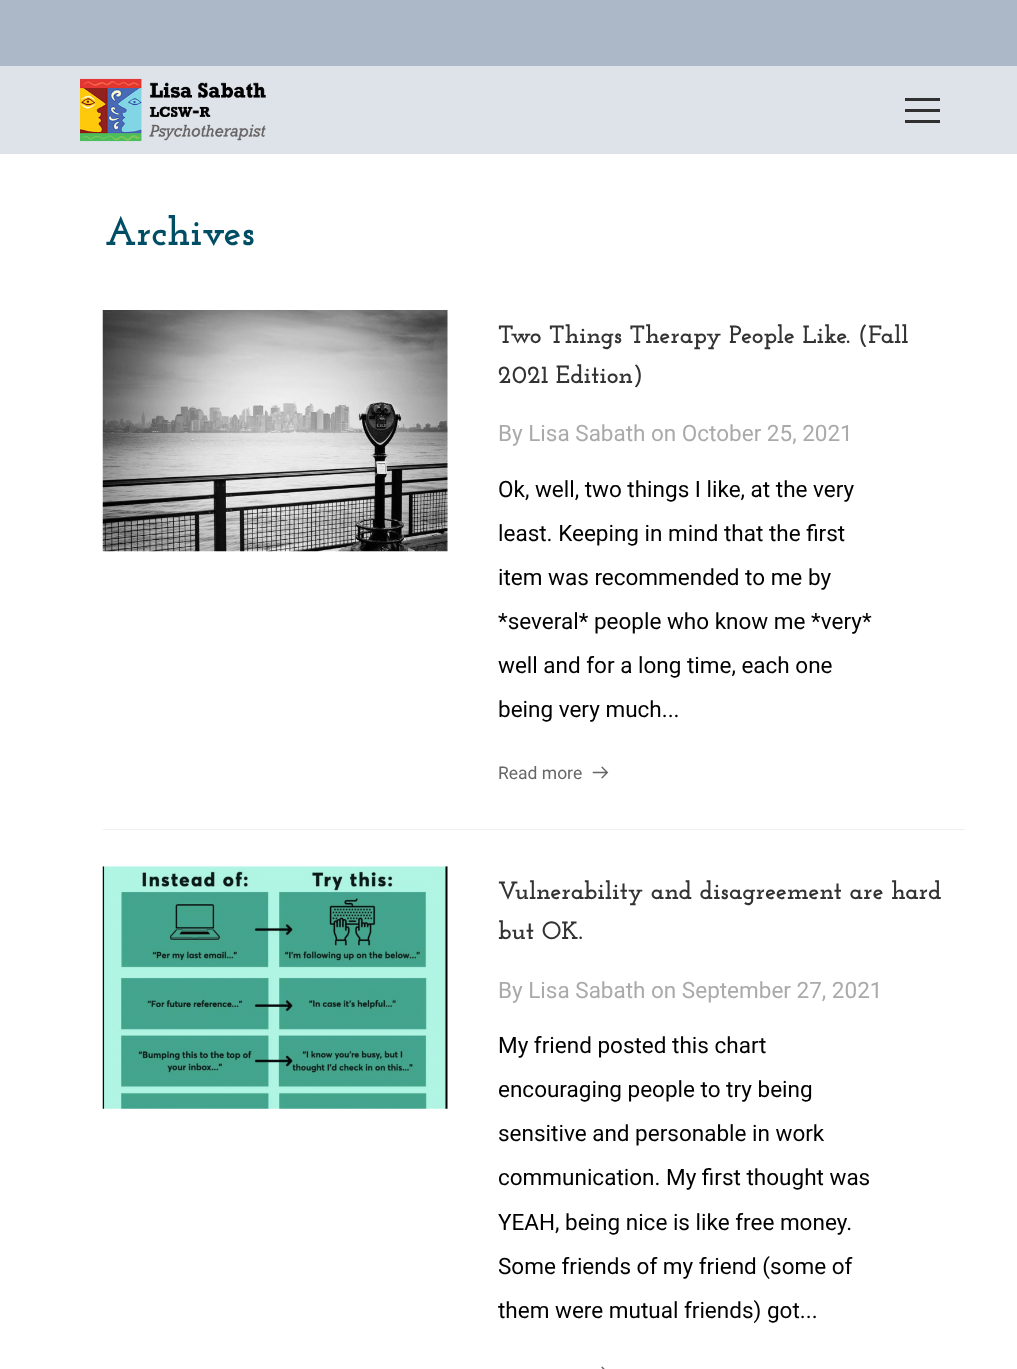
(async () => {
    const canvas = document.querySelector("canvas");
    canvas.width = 1017;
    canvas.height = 1369;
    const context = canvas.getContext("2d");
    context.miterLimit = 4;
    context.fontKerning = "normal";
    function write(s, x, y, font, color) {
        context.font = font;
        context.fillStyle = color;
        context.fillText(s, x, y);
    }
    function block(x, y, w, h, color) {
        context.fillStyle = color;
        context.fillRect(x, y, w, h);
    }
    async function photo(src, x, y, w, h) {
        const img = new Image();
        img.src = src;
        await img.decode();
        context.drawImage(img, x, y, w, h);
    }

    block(0, 0, 1017, 1369, "rgb(255, 255, 255)");
    block(0, 0, 1017, 66, "rgb(172, 184, 199)");
    block(0, 66, 1017, 88, "rgb(222, 227, 233)");
    await photo("media/1.png", 80, 78, 186, 64);
    block(905, 109, 35, 3, "rgb(48, 48, 48)");
    block(905, 98, 35, 3, "rgb(48, 48, 48)");
    block(905, 120, 35, 3, "rgb(48, 48, 48)");
    write("Archives", 105, 245, "100 40px Josefin Slab", "rgb(0, 78, 102)");
    block(103, 829, 862, 1, "rgb(239, 239, 239)");
    await photo("media/2.png", 102, 310, 346, 242);
    write("Two Things Therapy People Like. (Fall", 498, 343, "100 25px Josefin Slab", "rgb(51, 51, 51)");
    write("2021 Edition)", 498, 383, "100 25px Josefin Slab", "rgb(51, 51, 51)");
    write("By Lisa Sabath", 498, 441, "22.5px Roboto", "rgb(170, 170, 170)");
    write("on October 25, 2021", 651, 441, "22.5px Roboto", "rgb(170, 170, 170)");
    write("Ok, well, two things I like, at the very", 498, 497, "22.5px Roboto", "rgb(0, 0, 0)");
    write("least. Keeping in mind that the first", 498, 541, "22.5px Roboto", "rgb(0, 0, 0)");
    write("item was recommended to me by", 498, 585, "22.5px Roboto", "rgb(0, 0, 0)");
    write("*several* people who know me *very*", 498, 629, "22.5px Roboto", "rgb(0, 0, 0)");
    write("well and for a long time, each one", 498, 673, "22.5px Roboto", "rgb(0, 0, 0)");
    write("being very much...", 498, 717, "22.5px Roboto", "rgb(0, 0, 0)");
    write("Read more", 498, 779, "17.5px Roboto", "rgb(102, 102, 102)");
    await photo("media/3.png", 592, 766, 17, 13);
    await photo("media/4.png", 102, 866, 346, 243);
    write("Vulnerability and disagreement are hard", 498, 899, "100 25px Josefin Slab", "rgb(51, 51, 51)");
    write("but OK.", 498, 939, "100 25px Josefin Slab", "rgb(51, 51, 51)");
    write("By Lisa Sabath", 498, 998, "22.5px Roboto", "rgb(170, 170, 170)");
    write("on September 27, 2021", 651, 998, "22.5px Roboto", "rgb(170, 170, 170)");
    write("My friend posted this chart", 498, 1053, "22.5px Roboto", "rgb(0, 0, 0)");
    write("encouraging people to try being", 498, 1097, "22.5px Roboto", "rgb(0, 0, 0)");
    write("sensitive and personable in work", 498, 1141, "22.5px Roboto", "rgb(0, 0, 0)");
    write("communication. My first thought was", 498, 1185, "22.5px Roboto", "rgb(0, 0, 0)");
    write("YEAH, being nice is like free money.", 498, 1230, "22.5px Roboto", "rgb(0, 0, 0)");
    write("Some friends of my friend (some of", 498, 1274, "22.5px Roboto", "rgb(0, 0, 0)");
    write("them were mutual friends) got...", 498, 1318, "22.5px Roboto", "rgb(0, 0, 0)");
    await photo("media/5.png", 601, 1366, 4, 3);
})();
